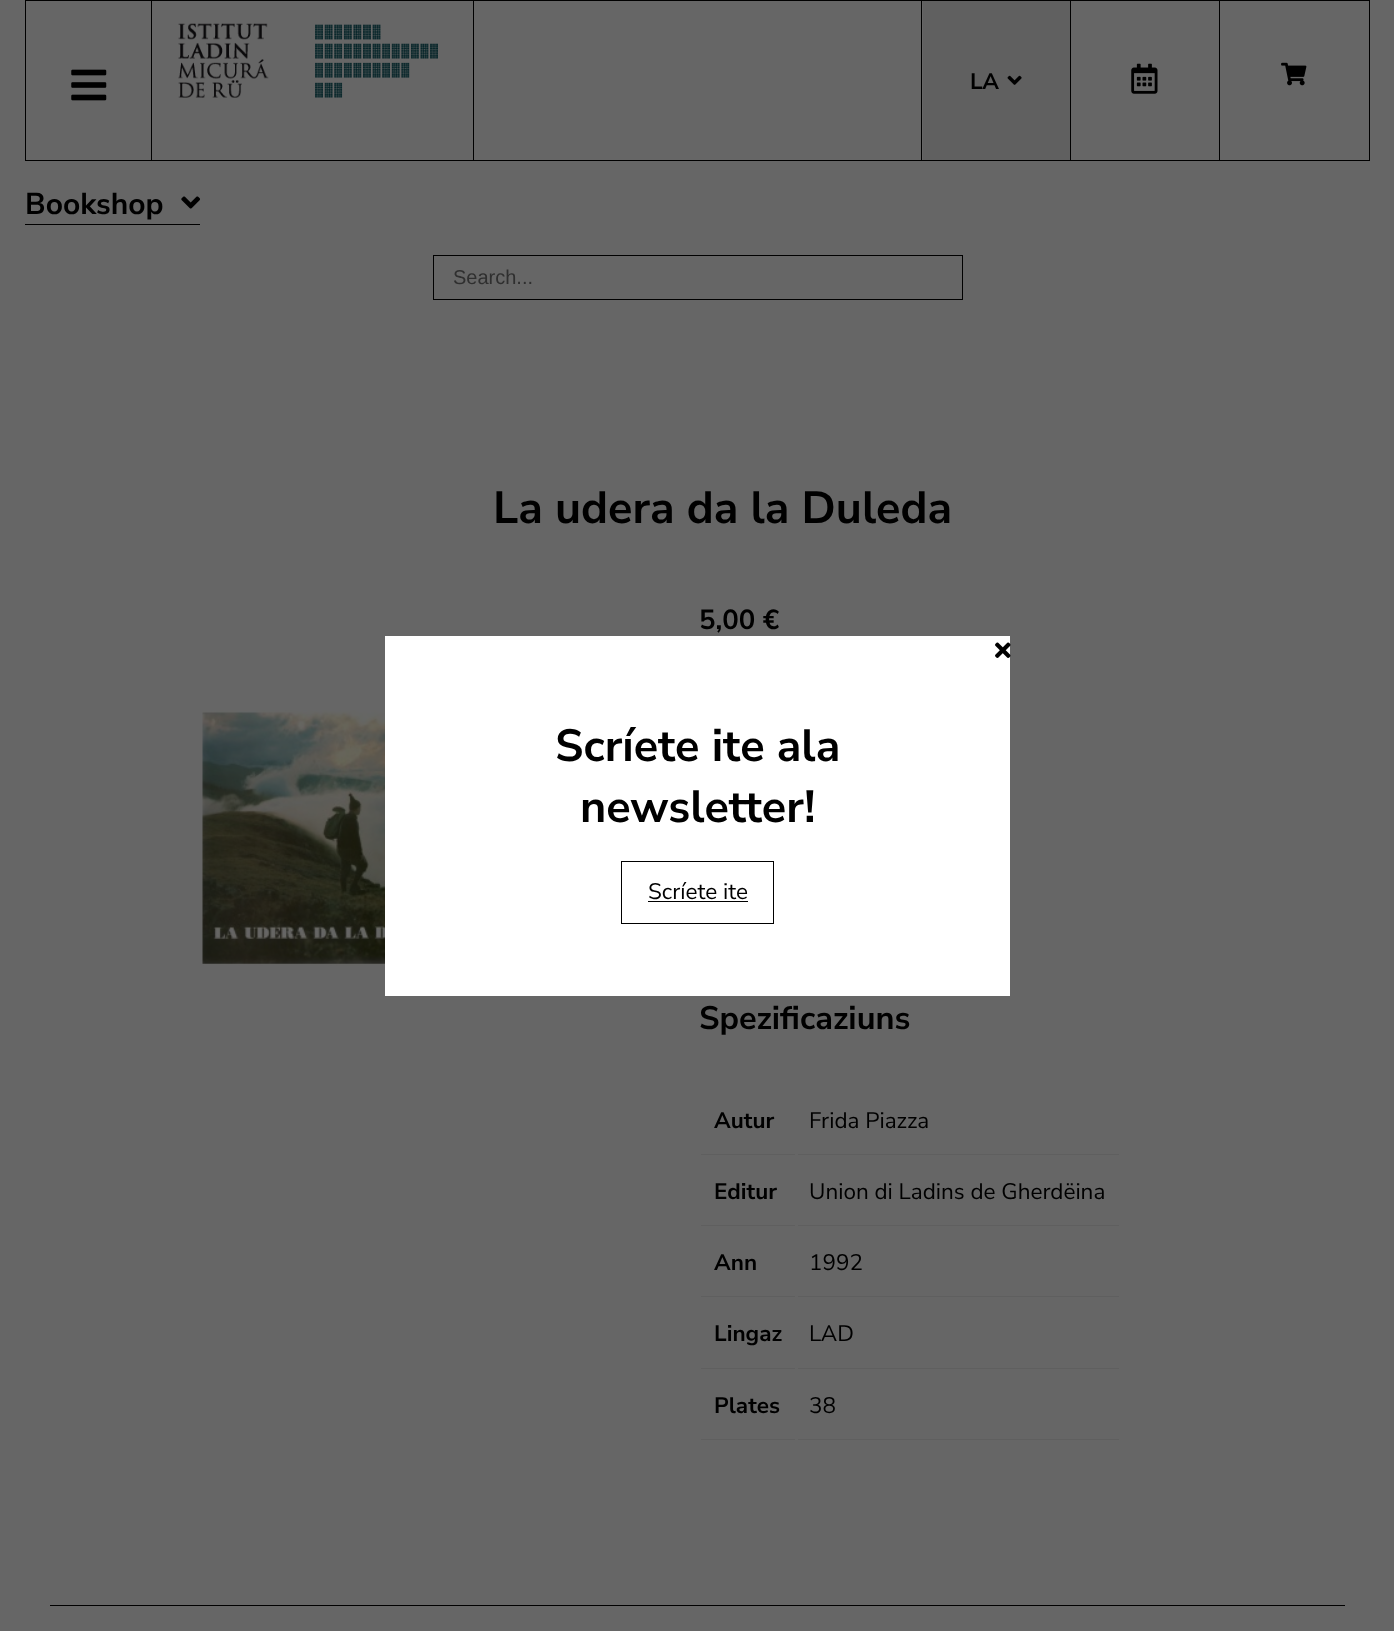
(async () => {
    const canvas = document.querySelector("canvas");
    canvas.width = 1394;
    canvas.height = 1631;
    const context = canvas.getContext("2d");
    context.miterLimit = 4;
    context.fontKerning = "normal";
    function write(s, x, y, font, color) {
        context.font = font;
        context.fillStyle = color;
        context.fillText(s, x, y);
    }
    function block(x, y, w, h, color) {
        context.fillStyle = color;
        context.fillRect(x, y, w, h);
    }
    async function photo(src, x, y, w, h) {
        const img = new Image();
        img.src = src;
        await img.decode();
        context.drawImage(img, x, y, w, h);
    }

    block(0, 0, 1394, 1631, "rgb(102, 102, 102)");
    context.strokeStyle = "rgb(0, 0, 0)";
    context.strokeRect(25.5, 0.5, 1344, 160);
    block(473, 1, 1, 159, "rgb(0, 0, 0)");
    block(151, 1, 1, 159, "rgb(0, 0, 0)");
    await photo("media/1.png", 71, 69, 36, 32);
    await photo("media/2.png", 178, 23, 260, 75);
    block(921, 1, 1, 159, "rgb(0, 0, 0)");
    block(1070, 1, 1, 159, "rgb(0, 0, 0)");
    block(923, 1, 147, 159, "rgb(96, 96, 96)");
    write("LA", 970, 89, "bold 22.5px Nunito Sans", "rgb(0, 0, 0)");
    await photo("media/3.png", 1007, 75, 15, 10);
    block(1219, 1, 1, 159, "rgb(0, 0, 0)");
    await photo("media/4.png", 1131, 63, 27, 31);
    await photo("media/5.png", 1281, 62, 26, 24);
    block(25, 224, 175, 1, "rgb(0, 0, 0)");
    write("Bookshop", 25, 214, "bold 30px Nunito Sans", "rgb(0, 0, 0)");
    await photo("media/6.png", 181, 196, 19, 13);
    context.strokeRect(433.5, 255.5, 529, 44);
    write("Search...", 453, 284, "20px Liberation Sans", "rgb(47, 47, 47)");
    write("La udera da la Duleda", 493, 523, "bold 45px Nunito Sans", "rgb(0, 0, 0)");
    await photo("media/7.png", 202, 710, 183, 256);
    write("5,00 €", 699, 629, "bold 27.5px Nunito Sans", "rgb(0, 0, 0)");
    write("Spezificaziuns", 699, 1029, "bold 32.5px Nunito Sans", "rgb(0, 0, 0)");
    block(701, 1154, 94, 1, "rgb(95, 95, 95)");
    write("Autur", 714, 1128, "bold 22.5px Nunito Sans", "rgb(0, 0, 0)");
    block(798, 1154, 321, 1, "rgb(95, 95, 95)");
    write("Frida Piazza", 809, 1128, "22.5px Nunito Sans", "rgb(0, 0, 0)");
    block(701, 1225, 94, 1, "rgb(95, 95, 95)");
    write("Editur", 714, 1199, "bold 22.5px Nunito Sans", "rgb(0, 0, 0)");
    block(798, 1225, 321, 1, "rgb(95, 95, 95)");
    write("Union di Ladins de Gherdëina", 809, 1199, "22.5px Nunito Sans", "rgb(0, 0, 0)");
    block(701, 1296, 94, 1, "rgb(95, 95, 95)");
    write("Ann", 714, 1270, "bold 22.5px Nunito Sans", "rgb(0, 0, 0)");
    block(798, 1296, 321, 1, "rgb(95, 95, 95)");
    write("1992", 809, 1270, "22.5px Nunito Sans", "rgb(0, 0, 0)");
    block(701, 1368, 94, 1, "rgb(95, 95, 95)");
    write("Lingaz", 714, 1341, "bold 22.5px Nunito Sans", "rgb(0, 0, 0)");
    block(798, 1368, 321, 1, "rgb(95, 95, 95)");
    write("LAD", 809, 1341, "22.5px Nunito Sans", "rgb(0, 0, 0)");
    block(701, 1439, 94, 1, "rgb(95, 95, 95)");
    write("Plates", 714, 1413, "bold 22.5px Nunito Sans", "rgb(0, 0, 0)");
    block(798, 1439, 321, 1, "rgb(95, 95, 95)");
    write("38", 809, 1413, "22.5px Nunito Sans", "rgb(0, 0, 0)");
    block(385, 636, 625, 360, "rgb(255, 255, 255)");
    await photo("media/8.png", 995, 642, 16, 16);
    write("Scríete ite ala", 555, 761, "bold 45px Nunito Sans", "rgb(0, 0, 0)");
    write("newsletter!", 580, 822, "bold 45px Nunito Sans", "rgb(0, 0, 0)");
    context.strokeRect(621.5, 861.5, 152, 62);
    write("Scríete ite", 648, 899, "22.5px Nunito Sans", "rgb(0, 0, 0)");
    block(648, 901, 100, 1, "rgb(0, 0, 0)");
    block(50, 1605, 1295, 1, "rgb(0, 0, 0)");
})();
